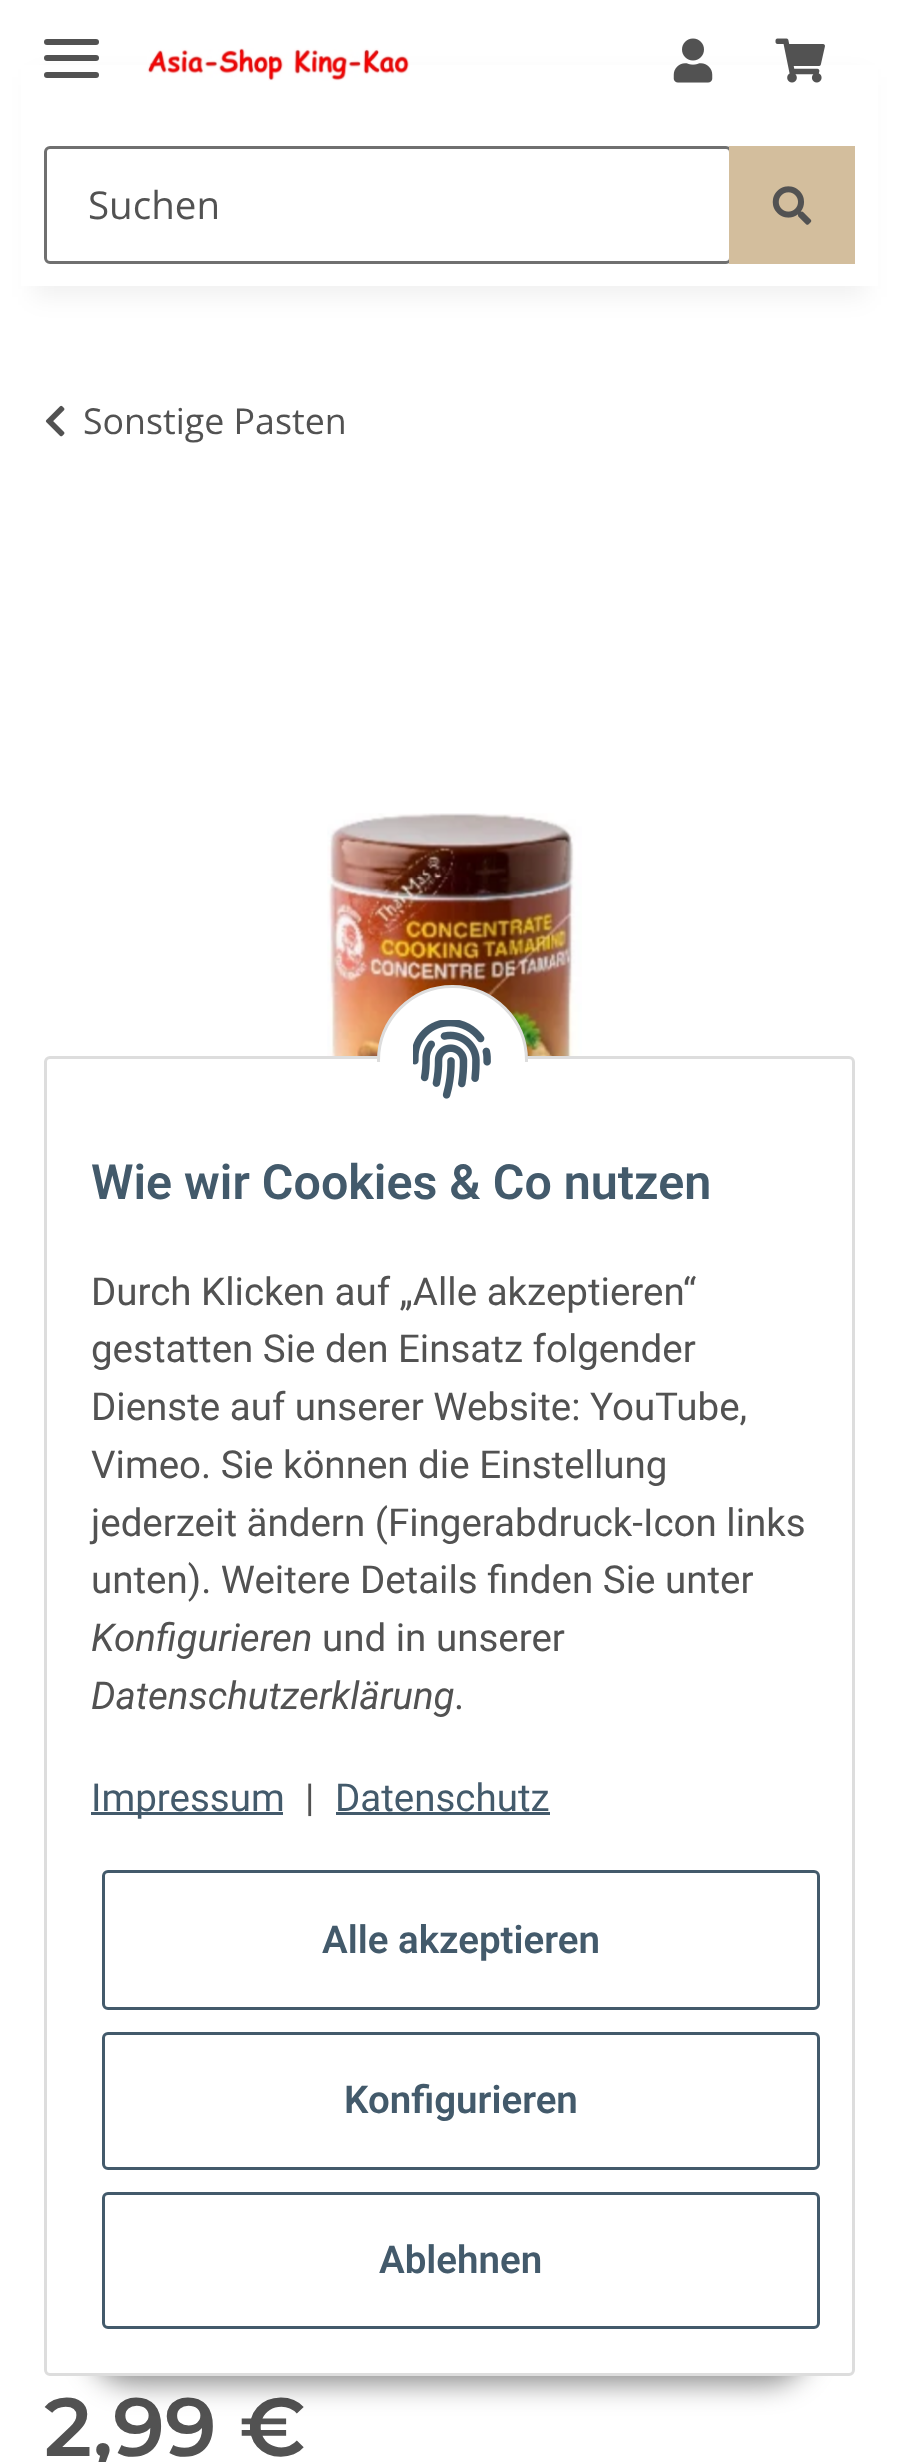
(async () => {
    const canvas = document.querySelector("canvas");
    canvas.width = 898;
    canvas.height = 2462;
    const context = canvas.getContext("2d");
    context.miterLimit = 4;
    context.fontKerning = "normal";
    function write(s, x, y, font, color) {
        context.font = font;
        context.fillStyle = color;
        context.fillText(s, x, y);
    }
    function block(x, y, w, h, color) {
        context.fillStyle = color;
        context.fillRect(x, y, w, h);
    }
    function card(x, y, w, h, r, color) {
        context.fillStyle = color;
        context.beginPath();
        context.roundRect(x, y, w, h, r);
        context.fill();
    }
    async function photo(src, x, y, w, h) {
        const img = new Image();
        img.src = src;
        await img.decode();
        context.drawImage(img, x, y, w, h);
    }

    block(0, 0, 898, 2462, "rgb(255, 255, 255)");
    context.fillStyle = "rgba(0, 0, 0, 0.06)";
    context.filter = "blur(12.5px)";
    context.beginPath();
    context.rect(33, 77, 833, 220);
    context.fill();
    context.filter = "none";
    block(21, 65, 857, 221, "rgb(255, 255, 255)");
    card(44, 55, 55, 6, 3, "rgb(82, 82, 82)");
    card(44, 39, 55, 6, 3, "rgb(82, 82, 82)");
    card(44, 72, 55, 6, 3, "rgb(82, 82, 82)");
    await photo("media/1.png", 147, 48, 263, 33);
    await photo("media/2.png", 673, 38, 40, 45);
    await photo("media/3.png", 775, 38, 50, 45);
    context.beginPath();
    context.roundRect(45.5, 147.5, 685, 115, 4.5);
    context.strokeStyle = "rgb(112, 112, 112)";
    context.lineWidth = 3;
    context.stroke();
    write("Suchen", 88, 219, "38.5px Open Sans", "rgb(82, 82, 82)");
    block(729, 146, 126, 118, "rgb(211, 190, 157)");
    await photo("media/4.png", 772, 186, 40, 39);
    await photo("media/5.png", 45, 405, 20, 32);
    write("Sonstige Pasten", 83, 434, "35.75px Open Sans", "rgb(82, 82, 82)");
    await photo("media/6.png", 327, 813, 255, 243);
    write("2,99 €", 44, 2456, "600 82.5px Montserrat", "rgb(82, 82, 82)");
    context.fillStyle = "rgba(0, 0, 0, 0.45)";
    context.filter = "blur(14px)";
    context.beginPath();
    context.roundRect(88, 2296, 723, 88, 44);
    context.fill();
    context.filter = "none";
    context.fillStyle = "rgb(255, 255, 255)";
    context.beginPath();
    context.roundRect(45.5, 1057.5, 808, 1317, 4.5);
    context.fill();
    context.strokeStyle = "rgb(221, 221, 221)";
    context.stroke();
    context.beginPath();
    context.arc(452.5, 1060.5, 74, 0, Math.PI * 2);
    context.fill();
    context.stroke();
    block(377, 1062, 151, 74, "rgb(255, 255, 255)");
    await photo("media/7.png", 413, 1020, 78, 79);
    write("Wie wir Cookies & Co nutzen", 91, 1199, "600 48.4px Roboto", "rgb(67, 90, 107)");
    write("Durch Klicken auf „Alle akzeptieren“", 91, 1305, "38.5px Roboto", "rgb(82, 82, 82)");
    write("gestatten Sie den Einsatz folgender", 91, 1362, "38.5px Roboto", "rgb(82, 82, 82)");
    write("Dienste auf unserer Website: YouTube,", 91, 1420, "38.5px Roboto", "rgb(82, 82, 82)");
    write("Vimeo. Sie können die Einstellung", 91, 1478, "38.5px Roboto", "rgb(82, 82, 82)");
    write("jederzeit ändern (Fingerabdruck-Icon links", 91, 1536, "38.5px Roboto", "rgb(82, 82, 82)");
    write("unten). Weitere Details finden Sie unter", 91, 1593, "38.5px Roboto", "rgb(82, 82, 82)");
    write("Konfigurieren", 91, 1651, "italic 38.5px Roboto", "rgb(82, 82, 82)");
    write("und in unserer", 322, 1651, "38.5px Roboto", "rgb(82, 82, 82)");
    write("Datenschutzerklärung", 91, 1709, "italic 38.5px Roboto", "rgb(82, 82, 82)");
    write(".", 454, 1709, "38.5px Roboto", "rgb(82, 82, 82)");
    block(91, 1812, 192, 3, "rgb(67, 90, 107)");
    write("Impressum", 91, 1811, "38.5px Roboto", "rgb(67, 90, 107)");
    write("|", 305, 1811, "38.5px Roboto", "rgb(82, 82, 82)");
    write("Datenschutz", 335, 1811, "38.5px Roboto", "rgb(67, 90, 107)");
    block(336, 1812, 214, 3, "rgb(67, 90, 107)");
    context.beginPath();
    context.roundRect(103.5, 1871.5, 715, 137, 4.5);
    context.strokeStyle = "rgb(67, 90, 107)";
    context.stroke();
    write("Alle akzeptieren", 322, 1953, "600 38.5px Roboto", "rgb(67, 90, 107)");
    context.beginPath();
    context.roundRect(103.5, 2033.5, 715, 135, 4.5);
    context.stroke();
    write("Konfigurieren", 344, 2113, "600 38.5px Roboto", "rgb(67, 90, 107)");
    context.beginPath();
    context.roundRect(103.5, 2193.5, 715, 134, 4.5);
    context.stroke();
    write("Ablehnen", 379, 2273, "600 38.5px Roboto", "rgb(67, 90, 107)");
})();
